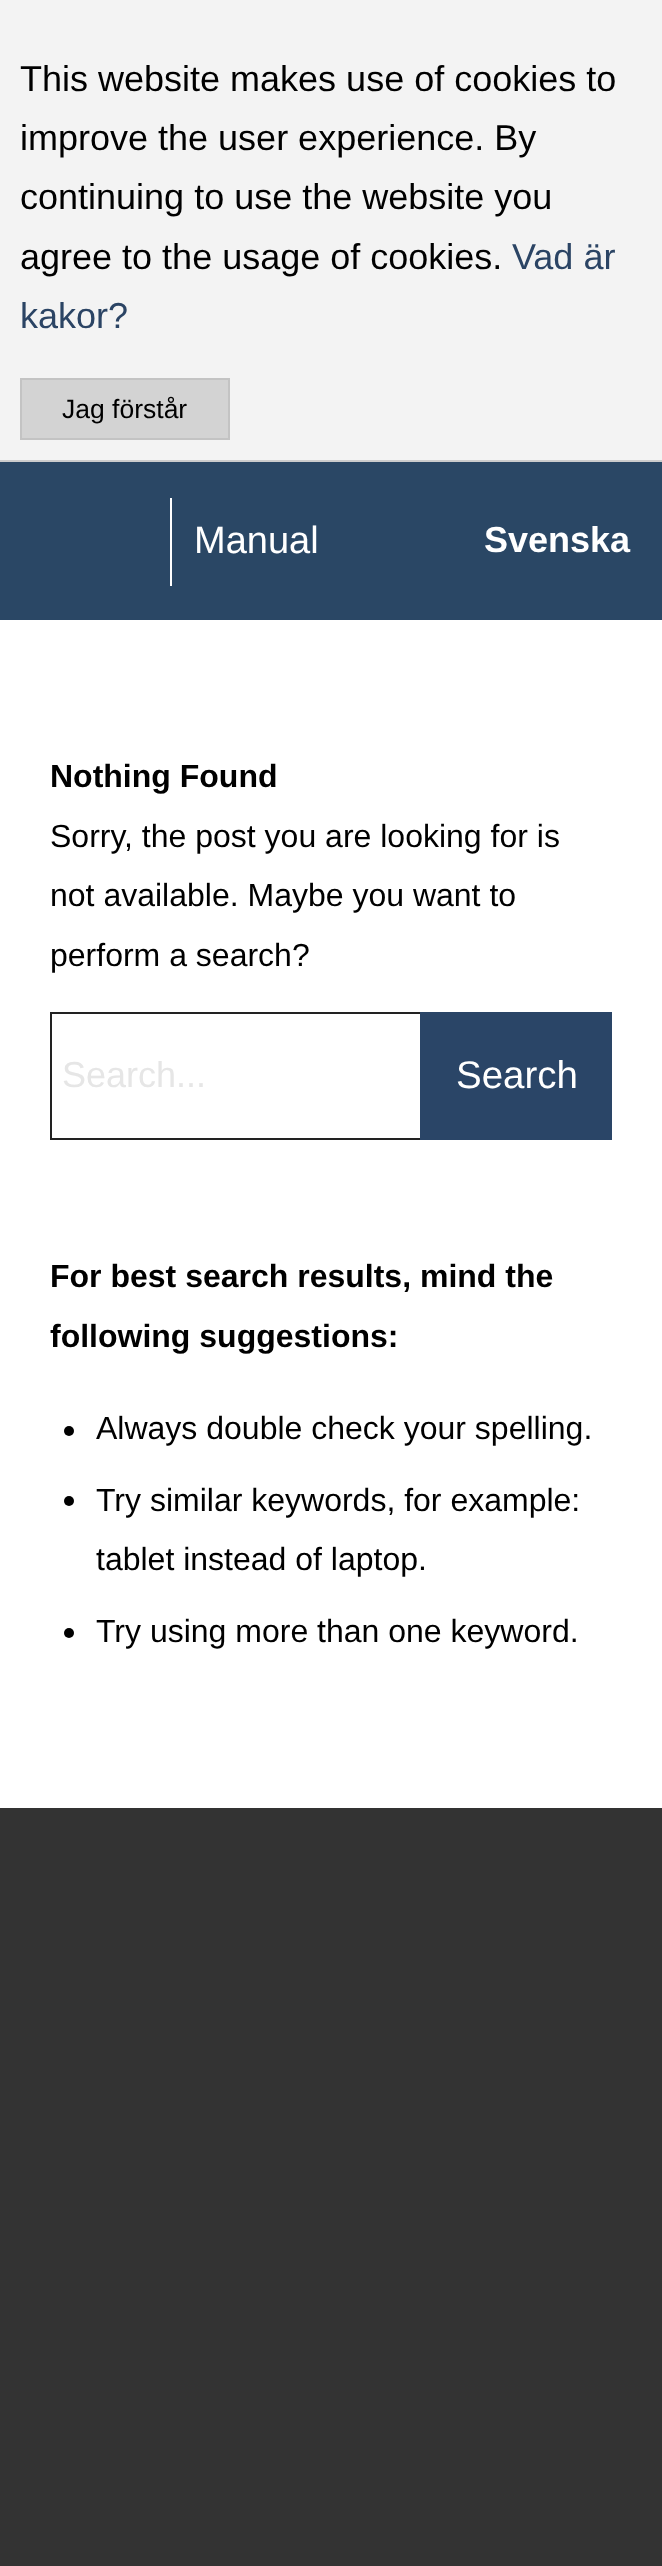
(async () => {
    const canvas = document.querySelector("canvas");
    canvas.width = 662;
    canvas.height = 2566;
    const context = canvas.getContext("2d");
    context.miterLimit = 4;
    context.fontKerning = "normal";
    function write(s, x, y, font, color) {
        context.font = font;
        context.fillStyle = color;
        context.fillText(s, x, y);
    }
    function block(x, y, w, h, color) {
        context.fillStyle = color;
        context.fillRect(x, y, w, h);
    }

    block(0, 0, 662, 2566, "rgb(51, 51, 51)");
    block(0, 460, 662, 2, "rgb(204, 204, 204)");
    block(0, 0, 662, 460, "rgb(243, 243, 243)");
    write("This website makes use of cookies to", 20, 91, "36px Liberation Sans", "rgb(0, 0, 0)");
    write("improve the user experience. By", 20, 150, "36px Liberation Sans", "rgb(0, 0, 0)");
    write("continuing to use the website you", 20, 209, "36px Liberation Sans", "rgb(0, 0, 0)");
    write("agree to the usage of cookies.", 20, 269, "36px Liberation Sans", "rgb(0, 0, 0)");
    write("Vad är", 512, 269, "36px Liberation Sans", "rgb(43, 68, 100)");
    write("kakor?", 20, 328, "36px Liberation Sans", "rgb(43, 68, 100)");
    context.fillStyle = "rgb(211, 211, 211)";
    context.beginPath();
    context.rect(21, 379, 208, 60);
    context.fill();
    context.strokeStyle = "rgb(195, 195, 195)";
    context.lineWidth = 2;
    context.stroke();
    write("Jag förstår", 62, 418, "26.5px Liberation Sans", "rgb(0, 0, 0)");
    block(0, 462, 662, 158, "rgb(42, 71, 101)");
    block(170, 498, 2, 88, "rgb(255, 255, 255)");
    write("Manual", 194, 553, "38px Liberation Sans", "rgb(255, 255, 255)");
    write("Svenska", 484, 552, "bold 36px Liberation Sans", "rgb(255, 255, 255)");
    block(0, 620, 662, 1188, "rgb(255, 255, 255)");
    write("Nothing Found", 50, 787, "bold 32px Liberation Sans", "rgb(0, 0, 0)");
    write("Sorry, the post you are looking for is", 50, 847, "32px Liberation Sans", "rgb(0, 0, 0)");
    write("not available. Maybe you want to", 50, 906, "32px Liberation Sans", "rgb(0, 0, 0)");
    write("perform a search?", 50, 966, "32px Liberation Sans", "rgb(0, 0, 0)");
    context.strokeStyle = "rgb(34, 34, 34)";
    context.strokeRect(51, 1013, 560, 126);
    write("Search...", 62, 1087, "36px Liberation Sans", "rgb(230, 230, 230)");
    block(420, 1012, 192, 128, "rgb(42, 69, 103)");
    write("Search", 456, 1088, "38.5px Liberation Sans", "rgb(255, 255, 255)");
    write("For best search results, mind the", 50, 1287, "bold 32px Liberation Sans", "rgb(0, 0, 0)");
    write("following suggestions:", 50, 1347, "bold 32px Liberation Sans", "rgb(0, 0, 0)");
    context.beginPath();
    context.arc(69, 1431, 5, 0, Math.PI * 2);
    context.fill();
    write("Always double check your spelling.", 96, 1439, "32px Liberation Sans", "rgb(0, 0, 0)");
    context.beginPath();
    context.arc(69, 1501, 5, 0, Math.PI * 2);
    context.fill();
    write("Try similar keywords, for example:", 96, 1511, "32px Liberation Sans", "rgb(0, 0, 0)");
    write("tablet instead of laptop.", 96, 1570, "32px Liberation Sans", "rgb(0, 0, 0)");
    context.beginPath();
    context.arc(69, 1633, 5, 0, Math.PI * 2);
    context.fill();
    write("Try using more than one keyword.", 96, 1642, "32px Liberation Sans", "rgb(0, 0, 0)");
})();
